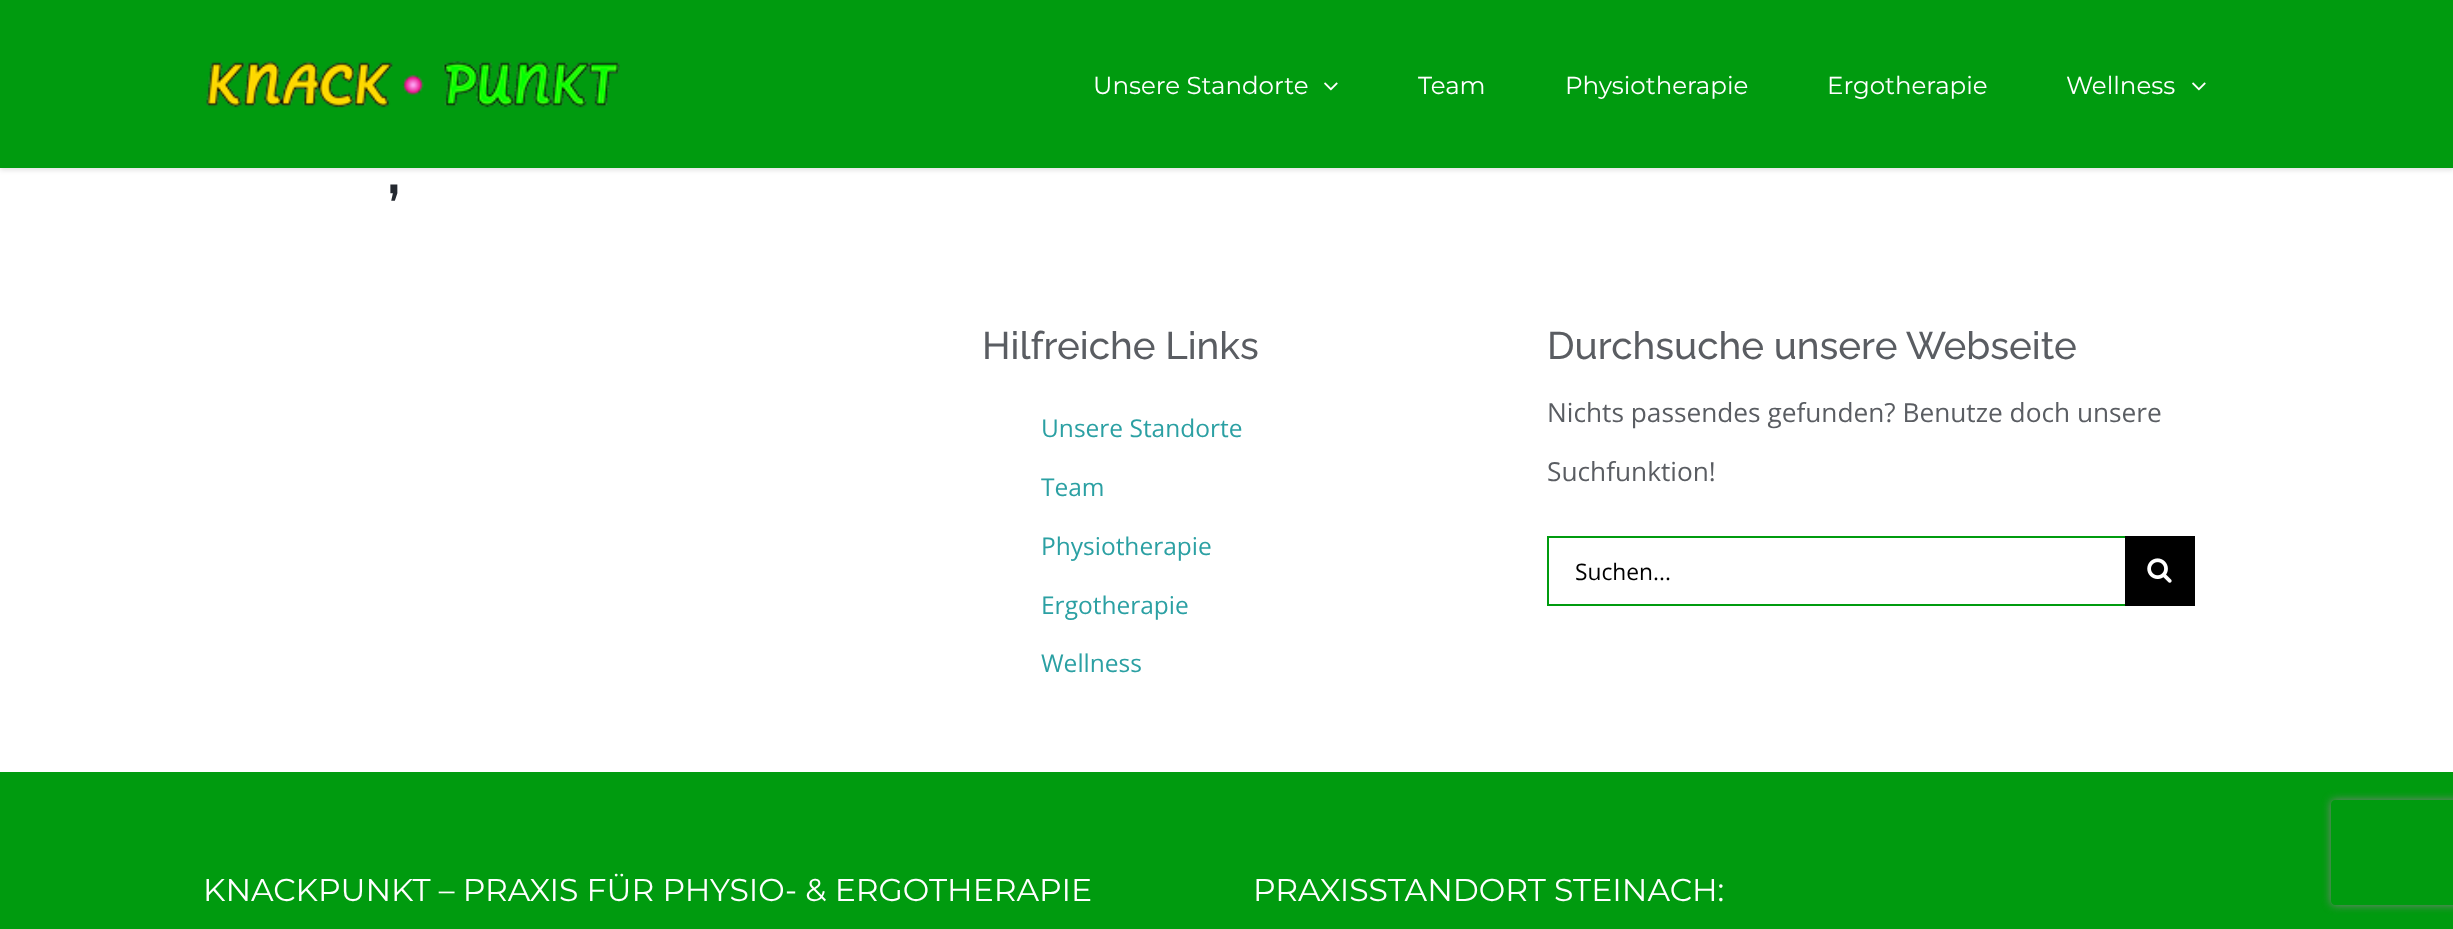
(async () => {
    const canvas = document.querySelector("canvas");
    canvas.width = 2453;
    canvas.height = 929;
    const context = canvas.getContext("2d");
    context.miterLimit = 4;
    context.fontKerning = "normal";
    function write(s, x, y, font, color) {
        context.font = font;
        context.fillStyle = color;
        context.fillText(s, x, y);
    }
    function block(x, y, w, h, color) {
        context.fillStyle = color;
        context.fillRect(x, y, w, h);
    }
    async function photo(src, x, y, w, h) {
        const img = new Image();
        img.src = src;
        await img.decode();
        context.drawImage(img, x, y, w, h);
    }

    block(0, 0, 2453, 929, "rgb(255, 255, 255)");
    context.fillStyle = "rgba(0, 0, 0, 0.12)";
    context.filter = "blur(2.5px)";
    context.beginPath();
    context.rect(0, 2, 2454, 168);
    context.fill();
    context.filter = "none";
    block(0, 0, 2453, 168, "rgb(0, 155, 15)");
    await photo("media/1.png", 206, 61, 414, 47);
    write("Unsere Standorte", 1093, 94, "100 24.5px Montserrat", "rgb(255, 255, 255)");
    await photo("media/2.png", 1324, 82, 14, 9);
    write("Team", 1418, 94, "100 24.5px Montserrat", "rgb(255, 255, 255)");
    write("Physiotherapie", 1565, 94, "100 24.5px Montserrat", "rgb(255, 255, 255)");
    write("Ergotherapie", 1827, 94, "100 24.5px Montserrat", "rgb(255, 255, 255)");
    write("Wellness", 2066, 94, "100 24.5px Montserrat", "rgb(255, 255, 255)");
    await photo("media/2.png", 2192, 82, 14, 9);
    write(",", 385, 194, "100 84px Raleway", "rgb(36, 41, 48)");
    write("Hilfreiche Links", 982, 359, "100 38.5px Raleway", "rgb(90, 93, 98)");
    write("Unsere Standorte", 1041, 437, "24.5px Open Sans", "rgb(43, 160, 163)");
    write("Team", 1041, 496, "24.5px Open Sans", "rgb(43, 160, 163)");
    write("Physiotherapie", 1041, 555, "24.5px Open Sans", "rgb(43, 160, 163)");
    write("Ergotherapie", 1041, 614, "24.5px Open Sans", "rgb(43, 160, 163)");
    write("Wellness", 1041, 672, "24.5px Open Sans", "rgb(43, 160, 163)");
    write("Durchsuche unsere Webseite", 1547, 359, "100 38.5px Raleway", "rgb(90, 93, 98)");
    write("Nichts passendes gefunden? Benutze doch unsere", 1547, 422, "26.25px Open Sans", "rgb(90, 93, 98)");
    write("Suchfunktion!", 1547, 481, "26.25px Open Sans", "rgb(90, 93, 98)");
    block(1547, 536, 578, 2, "rgb(0, 155, 15)");
    block(1547, 604, 578, 2, "rgb(0, 155, 15)");
    block(1547, 536, 2, 70, "rgb(0, 155, 15)");
    write("Suchen...", 1575, 580, "22.75px Open Sans", "rgb(0, 0, 0)");
    block(2125, 536, 70, 70, "rgb(0, 0, 0)");
    await photo("media/3.png", 2147, 558, 25, 25);
    block(0, 772, 2453, 157, "rgb(0, 155, 15)");
    write("KNACKPUNKT – PRAXIS FÜR PHYSIO- & ERGOTHERAPIE", 203, 901, "100 31.5px Montserrat", "rgb(255, 255, 255)");
    write("PRAXISSTANDORT STEINACH:", 1253, 901, "100 31.5px Montserrat", "rgb(255, 255, 255)");
    context.save();
    context.beginPath();
    context.moveTo(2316, 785);
    context.lineTo(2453, 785);
    context.lineTo(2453, 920);
    context.lineTo(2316, 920);
    context.closePath();
    context.moveTo(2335, 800);
    context.lineTo(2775, 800);
    context.bezierCurveTo(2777, 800, 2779, 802, 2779, 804);
    context.lineTo(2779, 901);
    context.bezierCurveTo(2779, 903, 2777, 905, 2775, 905);
    context.lineTo(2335, 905);
    context.bezierCurveTo(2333, 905, 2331, 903, 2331, 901);
    context.lineTo(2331, 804);
    context.bezierCurveTo(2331, 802, 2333, 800, 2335, 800);
    context.closePath();
    context.clip("evenodd");
    context.fillStyle = "rgb(128, 128, 128)";
    context.filter = "blur(4.5px)";
    context.beginPath();
    context.roundRect(2331, 800, 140, 105, 4);
    context.fill();
    context.filter = "none";
    context.restore();
})();
